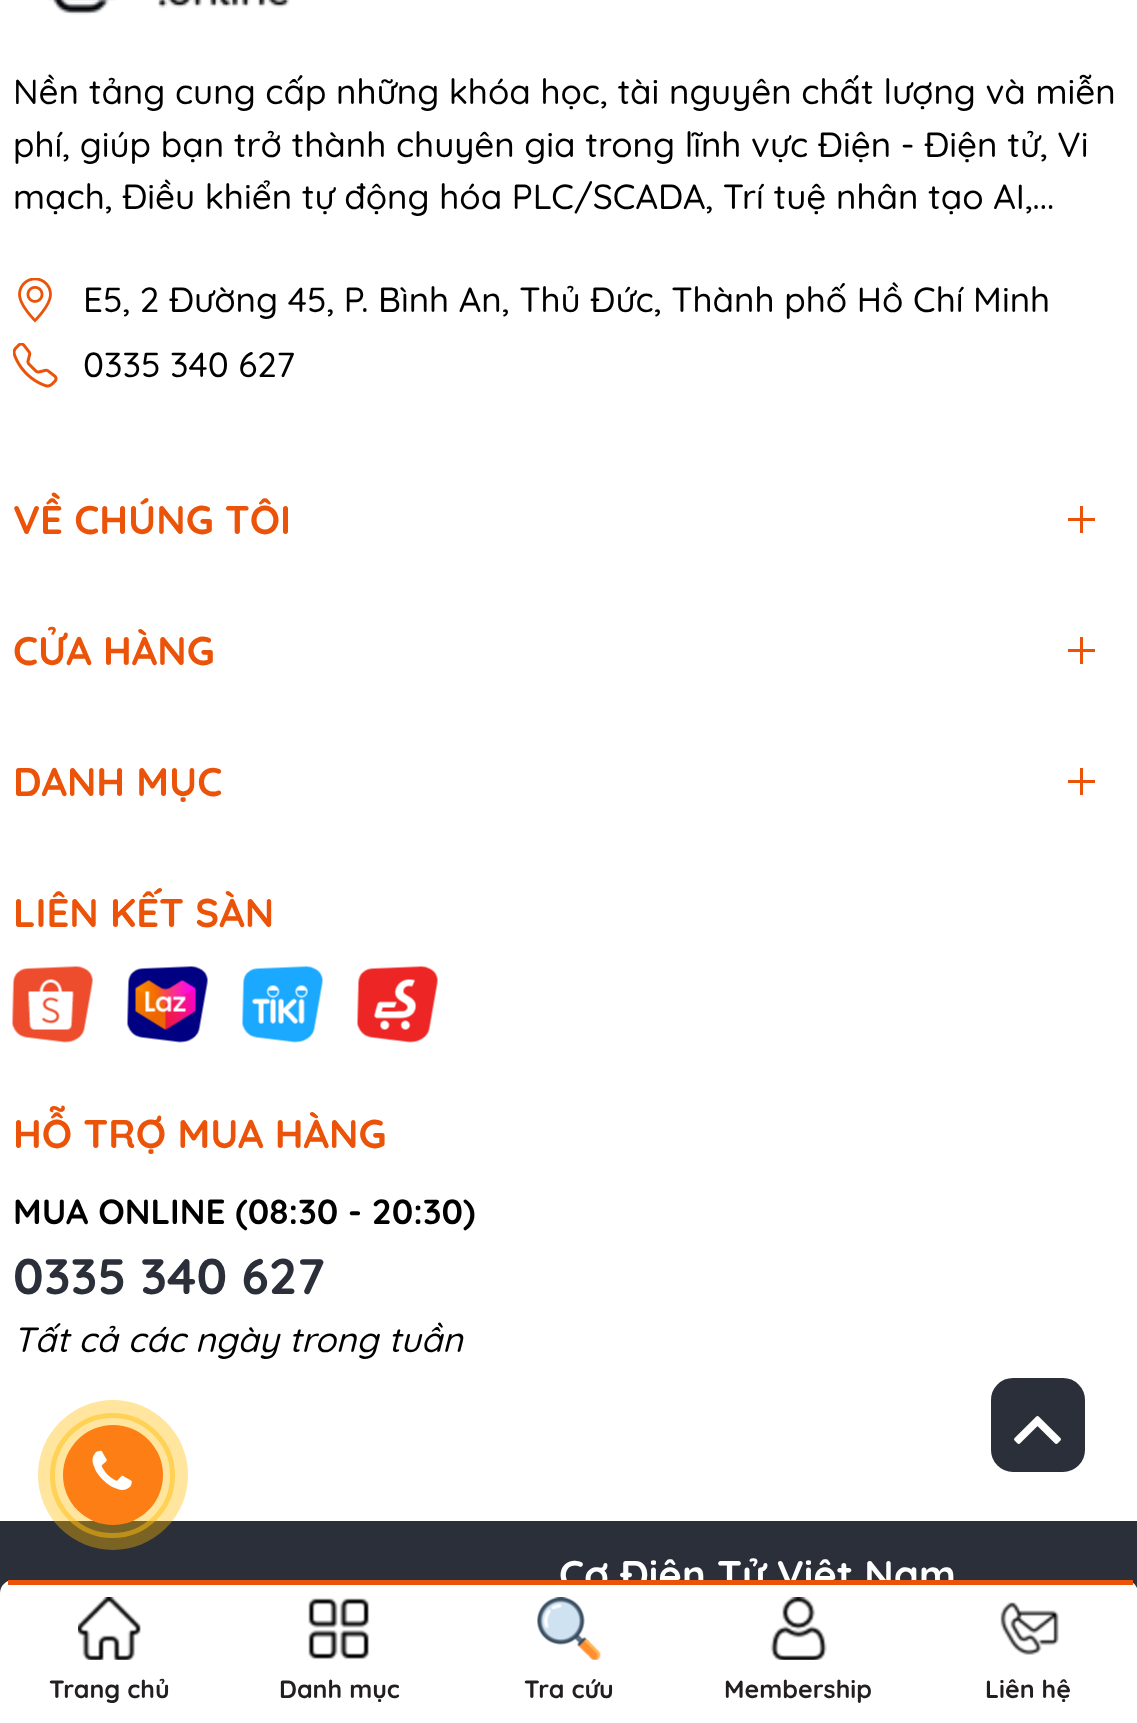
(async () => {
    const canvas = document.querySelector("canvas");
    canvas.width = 1137;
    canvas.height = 1723;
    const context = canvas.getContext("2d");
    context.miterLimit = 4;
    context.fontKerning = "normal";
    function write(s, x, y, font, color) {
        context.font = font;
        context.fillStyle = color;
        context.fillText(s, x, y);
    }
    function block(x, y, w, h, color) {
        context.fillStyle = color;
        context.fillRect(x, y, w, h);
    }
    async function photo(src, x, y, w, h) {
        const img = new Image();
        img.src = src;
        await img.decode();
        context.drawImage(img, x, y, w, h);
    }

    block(0, 0, 1137, 1723, "rgb(255, 255, 255)");
    await photo("media/1.png", 47, 0, 243, 15);
    write("Nền tảng cung cấp những khóa học, tài nguyên chất lượng và miễn", 13, 104, "500 35px Quicksand", "rgb(0, 0, 0)");
    write("phí, giúp bạn trở thành chuyên gia trong lĩnh vực Điện - Điện tử, Vi", 13, 157, "500 35px Quicksand", "rgb(0, 0, 0)");
    write("mạch, Điều khiển tự động hóa PLC/SCADA, Trí tuệ nhân tạo AI,...", 13, 209, "500 35px Quicksand", "rgb(0, 0, 0)");
    await photo("media/2.png", 18, 278, 34, 45);
    write("E5, 2 Đường 45, P. Bình An, Thủ Đức, Thành phố Hồ Chí Minh", 83, 312, "500 35px Quicksand", "rgb(0, 0, 0)");
    await photo("media/3.png", 13, 343, 45, 45);
    write("0335 340 627", 83, 377, "500 35px Quicksand", "rgb(0, 0, 0)");
    write("VỀ CHÚNG TÔI", 13, 534, "bold 40px Quicksand", "rgb(235, 83, 8)");
    block(1080, 506, 3, 27, "rgb(235, 83, 8)");
    block(1068, 518, 27, 3, "rgb(235, 83, 8)");
    write("CỬA HÀNG", 13, 665, "bold 40px Quicksand", "rgb(235, 83, 8)");
    block(1080, 637, 3, 27, "rgb(235, 83, 8)");
    block(1068, 649, 27, 3, "rgb(235, 83, 8)");
    write("DANH MỤC", 13, 796, "bold 40px Quicksand", "rgb(235, 83, 8)");
    block(1080, 768, 3, 27, "rgb(235, 83, 8)");
    block(1068, 780, 27, 3, "rgb(235, 83, 8)");
    write("LIÊN KẾT SÀN", 13, 927, "bold 40px Quicksand", "rgb(235, 83, 8)");
    await photo("media/4.png", 12, 966, 81, 77);
    await photo("media/5.png", 127, 966, 81, 77);
    await photo("media/6.png", 242, 966, 81, 77);
    await photo("media/7.png", 357, 966, 81, 77);
    write("HỖ TRỢ MUA HÀNG", 13, 1148, "bold 40px Quicksand", "rgb(235, 83, 8)");
    write("MUA ONLINE (08:30 - 20:30)", 13, 1224, "bold 35px Quicksand", "rgb(0, 0, 0)");
    write("0335 340 627", 13, 1294, "bold 50px Quicksand", "rgb(43, 47, 57)");
    write("Tất cả các ngày trong tuần", 13, 1352, "italic 500 35px Quicksand", "rgb(0, 0, 0)");
    block(0, 1521, 1137, 72, "rgb(43, 47, 57)");
    write("Cơ Điện Tử Việt Nam", 559, 1589, "bold 40px Quicksand", "rgb(255, 255, 255)");
    context.beginPath();
    context.arc(112.5, 1475.5, 60, 0, Math.PI * 2);
    context.strokeStyle = "rgba(255, 193, 26, 0.5)";
    context.lineWidth = 5;
    context.stroke();
    context.fillStyle = "rgba(255, 186, 0, 0.38)";
    context.beginPath();
    context.arc(113, 1475, 75, 0, Math.PI * 2);
    context.fill();
    context.fillStyle = "rgb(253, 126, 20)";
    context.beginPath();
    context.arc(113, 1475, 50, 0, Math.PI * 2);
    context.fill();
    await photo("media/8.png", 92, 1450, 40, 40);
    context.fillStyle = "rgb(43, 47, 57)";
    context.beginPath();
    context.roundRect(989.5, 1376.5, 97, 97, 23.5);
    context.fill();
    context.strokeStyle = "rgb(255, 255, 255)";
    context.lineWidth = 3;
    context.stroke();
    await photo("media/9.png", 1014, 1416, 47, 28);
    context.fillStyle = "rgb(255, 255, 255)";
    context.beginPath();
    context.moveTo(13, 1580);
    context.lineTo(1125, 1580);
    context.bezierCurveTo(1132, 1580, 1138, 1586, 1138, 1593);
    context.lineTo(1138, 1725);
    context.lineTo(0, 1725);
    context.lineTo(0, 1593);
    context.bezierCurveTo(0, 1586, 6, 1580, 13, 1580);
    context.closePath();
    context.fill();
    block(8, 1580, 1125, 5, "rgb(235, 83, 8)");
    await photo("media/10.png", 78, 1597, 63, 63);
    write("Trang chủ", 49, 1698, "bold 25px Quicksand", "rgb(35, 31, 32)");
    await photo("media/11.png", 308, 1598, 62, 62);
    write("Danh mục", 279, 1698, "bold 25px Quicksand", "rgb(35, 31, 32)");
    await photo("media/12.png", 537, 1597, 64, 63);
    write("Tra cứu", 524, 1698, "bold 25px Quicksand", "rgb(35, 31, 32)");
    await photo("media/13.png", 770, 1597, 57, 63);
    write("Membership", 724, 1698, "bold 25px Quicksand", "rgb(35, 31, 32)");
    await photo("media/14.png", 1000, 1602, 59, 53);
    write("Liên hệ", 985, 1698, "bold 25px Quicksand", "rgb(35, 31, 32)");
})();
